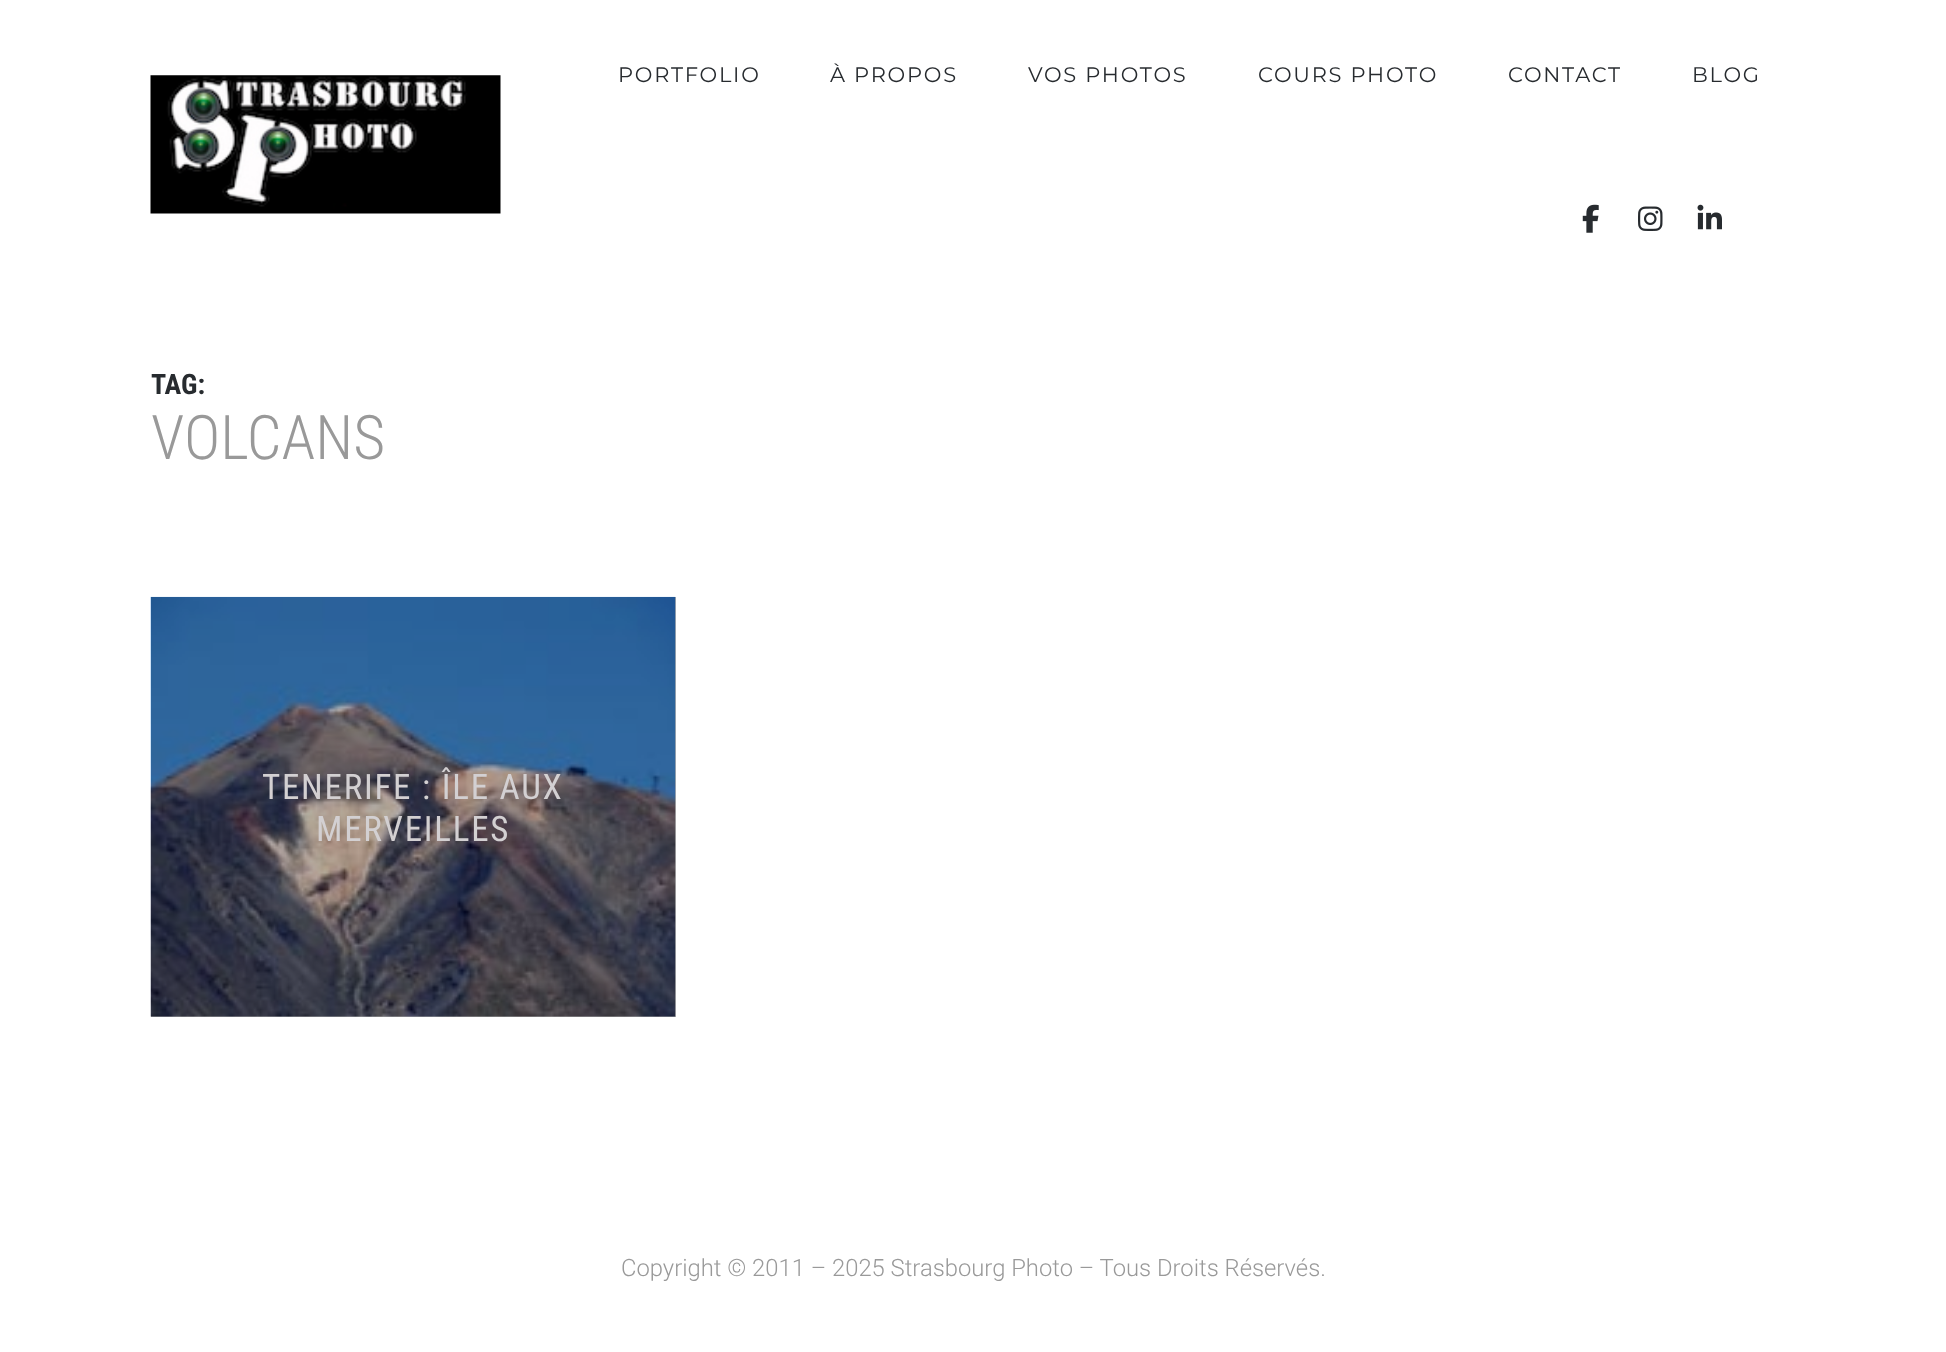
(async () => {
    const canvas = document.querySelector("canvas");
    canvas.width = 1946;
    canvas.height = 1352;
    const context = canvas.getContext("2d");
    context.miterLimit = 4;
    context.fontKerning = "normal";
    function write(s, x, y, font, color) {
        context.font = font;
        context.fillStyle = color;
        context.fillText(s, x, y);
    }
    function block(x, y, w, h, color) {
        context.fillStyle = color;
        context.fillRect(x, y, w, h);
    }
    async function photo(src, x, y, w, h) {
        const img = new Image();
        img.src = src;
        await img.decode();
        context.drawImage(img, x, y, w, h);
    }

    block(0, 0, 1946, 1352, "rgb(255, 255, 255)");
    block(151, 597, 525, 420, "rgb(179, 179, 179)");
    context.letterSpacing = "1.75px";
    write("PORTFOLIO", 618, 82, "21px Montserrat", "rgb(39, 43, 47)");
    write("À PROPOS", 830, 82, "21px Montserrat", "rgb(39, 43, 47)");
    write("VOS PHOTOS", 1028, 82, "21px Montserrat", "rgb(39, 43, 47)");
    write("COURS PHOTO", 1258, 82, "21px Montserrat", "rgb(39, 43, 47)");
    write("CONTACT", 1508, 82, "21px Montserrat", "rgb(39, 43, 47)");
    write("BLOG", 1692, 82, "21px Montserrat", "rgb(39, 43, 47)");
    await photo("media/1.png", 1582, 204, 17, 29);
    await photo("media/2.png", 1638, 206, 25, 25);
    await photo("media/3.png", 1697, 204, 25, 26);
    await photo("media/4.png", 150, 75, 351, 139);
    context.letterSpacing = "0px";
    write("TAG:", 151, 394, "bold 28px Roboto Condensed", "rgb(39, 43, 47)");
    write("VOLCANS", 151, 459, "300 61.5px Roboto Condensed", "rgb(153, 153, 153)");
    await photo("media/5.png", 150, 596, 526, 421);
    context.letterSpacing = "1.75px";
    write("TENERIFE : ÎLE AUX", 262, 799, "35px Roboto Condensed", "rgb(211, 208, 210)");
    write("MERVEILLES", 316, 841, "35px Roboto Condensed", "rgb(211, 208, 210)");
    context.letterSpacing = "0px";
    write("Copyright © 2011 – 2025 Strasbourg Photo – Tous Droits Réservés.", 621, 1276, "300 23.8px Roboto", "rgb(153, 153, 153)");
})();
